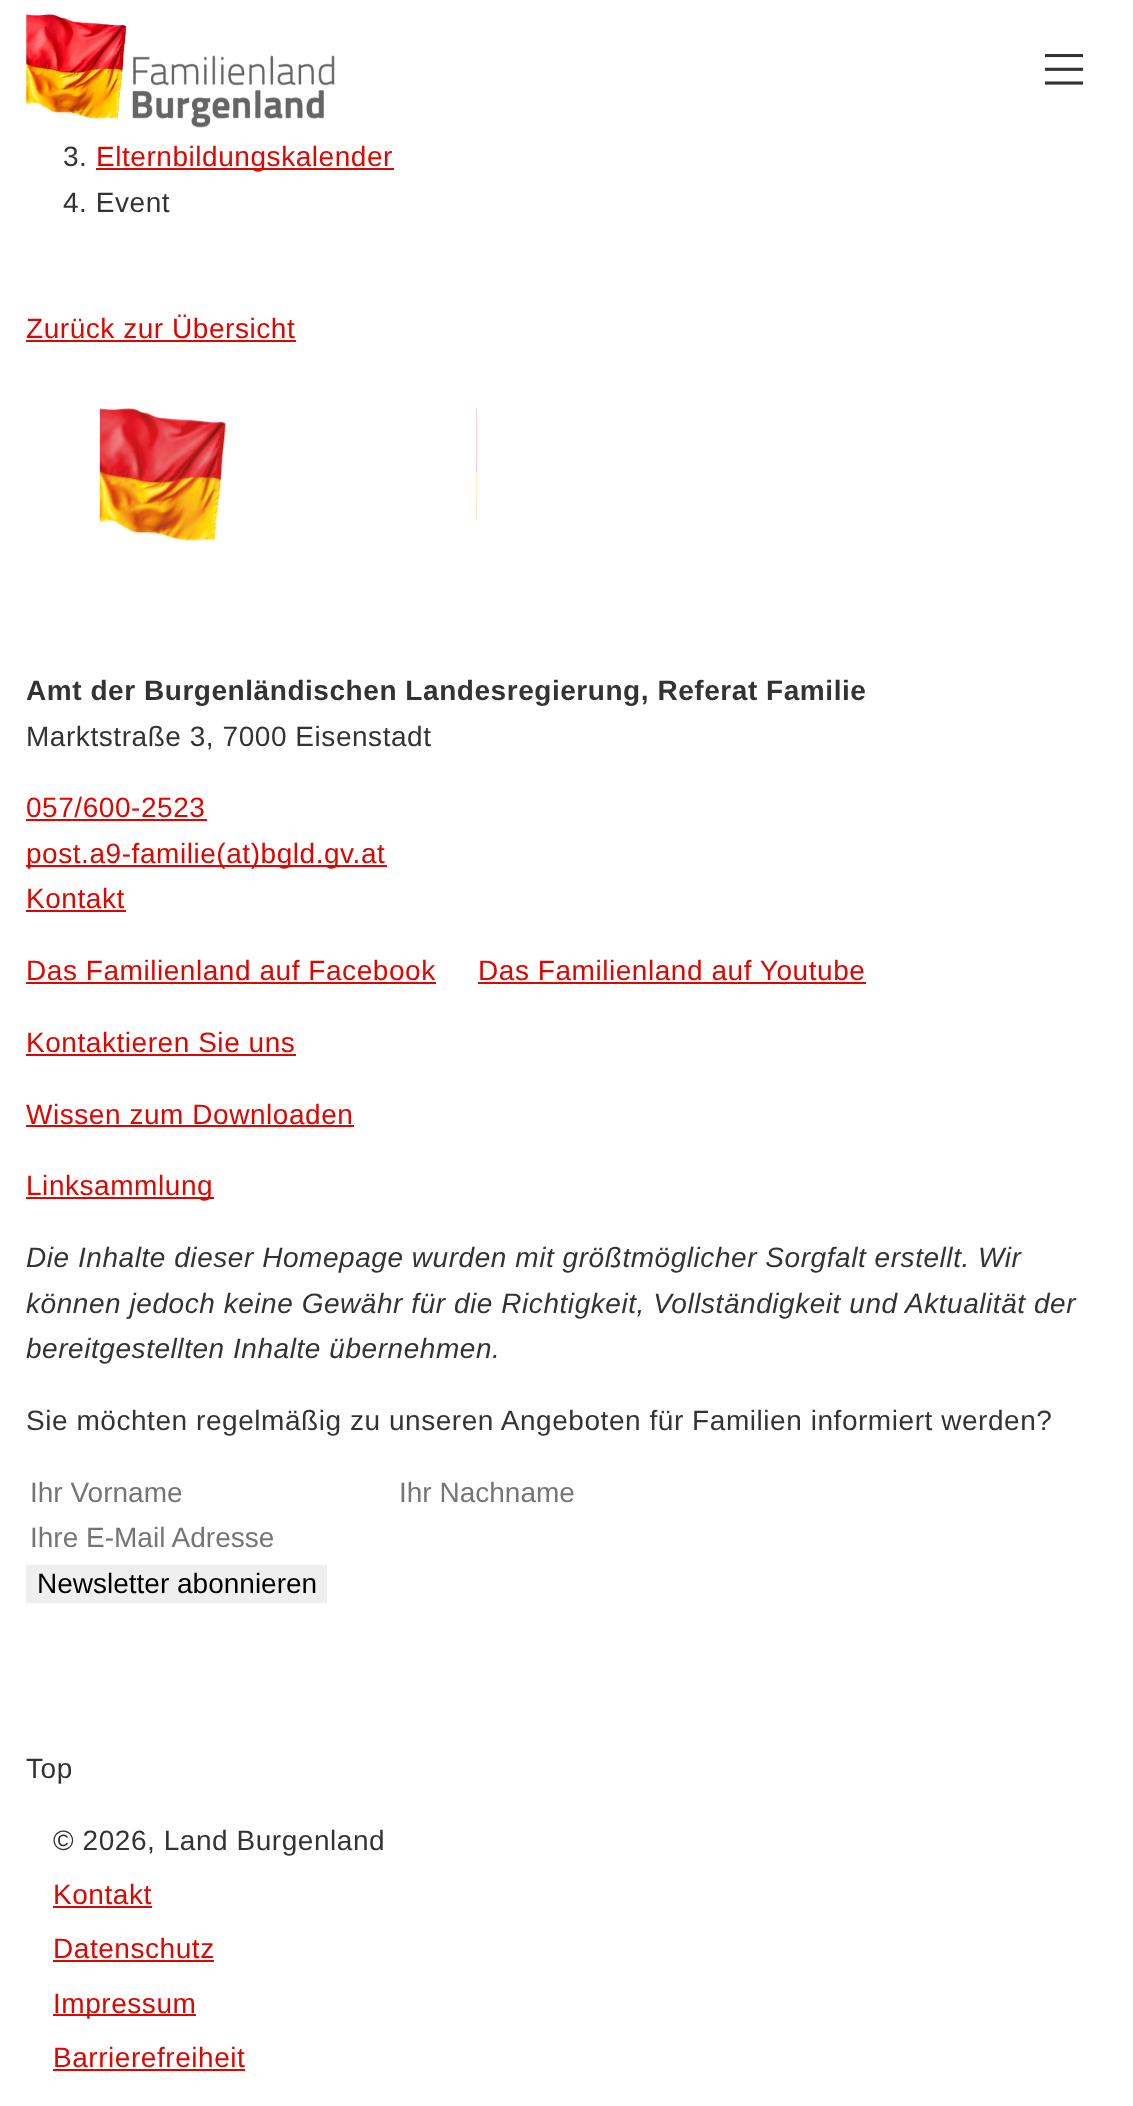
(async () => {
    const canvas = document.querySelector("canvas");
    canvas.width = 1133;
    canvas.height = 2106;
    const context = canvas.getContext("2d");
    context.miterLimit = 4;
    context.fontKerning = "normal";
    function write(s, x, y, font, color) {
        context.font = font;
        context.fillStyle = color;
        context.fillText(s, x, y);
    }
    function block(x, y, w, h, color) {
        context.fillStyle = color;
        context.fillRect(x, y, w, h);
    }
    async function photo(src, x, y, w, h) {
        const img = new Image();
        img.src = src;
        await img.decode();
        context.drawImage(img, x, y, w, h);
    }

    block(0, 0, 1133, 2106, "rgb(255, 255, 255)");
    await photo("media/1.png", 26, 14, 309, 114);
    await photo("media/2.png", 1045, 54, 38, 31);
    context.letterSpacing = "0.55px";
    write("3.", 63, 166, "28px Liberation Sans", "rgb(51, 51, 51)");
    block(96, 168, 298, 2, "rgb(220, 7, 0)");
    write("Elternbildungskalender", 96, 166, "28px Liberation Sans", "rgb(220, 7, 0)");
    write("4. Event", 63, 212, "28px Liberation Sans", "rgb(51, 51, 51)");
    write("Zurück zur Übersicht", 26, 338, "28px Liberation Sans", "rgb(220, 7, 0)");
    block(26, 340, 270, 2, "rgb(220, 7, 0)");
    await photo("media/3.png", 99, 408, 378, 133);
    write("Amt der Burgenländischen Landesregierung, Referat Familie", 26, 700, "bold 28px Liberation Sans", "rgb(51, 51, 51)");
    write("Marktstraße 3, 7000 Eisenstadt", 26, 746, "28px Liberation Sans", "rgb(51, 51, 51)");
    write("057/600-2523", 26, 817, "28px Liberation Sans", "rgb(220, 7, 0)");
    block(26, 819, 181, 2, "rgb(220, 7, 0)");
    block(26, 865, 361, 2, "rgb(220, 7, 0)");
    write("post.a9-familie(at)bgld.gv.at", 26, 863, "28px Liberation Sans", "rgb(220, 7, 0)");
    write("Kontakt", 26, 908, "28px Liberation Sans", "rgb(220, 7, 0)");
    block(26, 910, 100, 2, "rgb(220, 7, 0)");
    write("Das Familienland auf Facebook", 26, 980, "28px Liberation Sans", "rgb(220, 7, 0)");
    block(26, 982, 410, 2, "rgb(220, 7, 0)");
    write("Das Familienland auf Youtube", 478, 980, "28px Liberation Sans", "rgb(220, 7, 0)");
    block(478, 982, 388, 2, "rgb(220, 7, 0)");
    write("Kontaktieren Sie uns", 26, 1052, "28px Liberation Sans", "rgb(220, 7, 0)");
    block(26, 1054, 270, 2, "rgb(220, 7, 0)");
    write("Wissen zum Downloaden", 26, 1124, "28px Liberation Sans", "rgb(220, 7, 0)");
    block(26, 1125, 328, 2, "rgb(220, 7, 0)");
    block(26, 1197, 188, 2, "rgb(220, 7, 0)");
    write("Linksammlung", 26, 1195, "28px Liberation Sans", "rgb(220, 7, 0)");
    write("Die Inhalte dieser Homepage wurden mit größtmöglicher Sorgfalt erstellt. Wir", 26, 1267, "italic 28px Liberation Sans", "rgb(51, 51, 51)");
    write("können jedoch keine Gewähr für die Richtigkeit, Vollständigkeit und Aktualität der", 26, 1313, "italic 28px Liberation Sans", "rgb(51, 51, 51)");
    write("bereitgestellten Inhalte übernehmen.", 26, 1358, "italic 28px Liberation Sans", "rgb(51, 51, 51)");
    write("Sie möchten regelmäßig zu unseren Angeboten für Familien informiert werden?", 26, 1430, "28px Liberation Sans", "rgb(51, 51, 51)");
    context.letterSpacing = "0px";
    write("Ihr Vorname", 30, 1502, "28px Liberation Sans", "rgb(117, 117, 117)");
    write("Ihr Nachname", 399, 1502, "28px Liberation Sans", "rgb(117, 117, 117)");
    write("Ihre E-Mail Adresse", 30, 1547, "28px Liberation Sans", "rgb(117, 117, 117)");
    block(26, 1565, 301, 38, "rgb(239, 239, 239)");
    write("Newsletter abonnieren", 37, 1593, "28px Liberation Sans", "rgb(0, 0, 0)");
    context.letterSpacing = "0.55px";
    write("Top", 26, 1778, "28px Liberation Sans", "rgb(51, 51, 51)");
    write("© 2026, Land Burgenland", 53, 1850, "28px Liberation Sans", "rgb(51, 51, 51)");
    write("Kontakt", 53, 1904, "28px Liberation Sans", "rgb(220, 7, 0)");
    block(53, 1906, 99, 2, "rgb(220, 7, 0)");
    write("Datenschutz", 53, 1958, "28px Liberation Sans", "rgb(220, 7, 0)");
    block(53, 1960, 161, 2, "rgb(220, 7, 0)");
    block(53, 2014, 143, 2, "rgb(220, 7, 0)");
    write("Impressum", 53, 2013, "28px Liberation Sans", "rgb(220, 7, 0)");
    write("Barrierefreiheit", 53, 2067, "28px Liberation Sans", "rgb(220, 7, 0)");
    block(53, 2069, 192, 2, "rgb(220, 7, 0)");
})();
